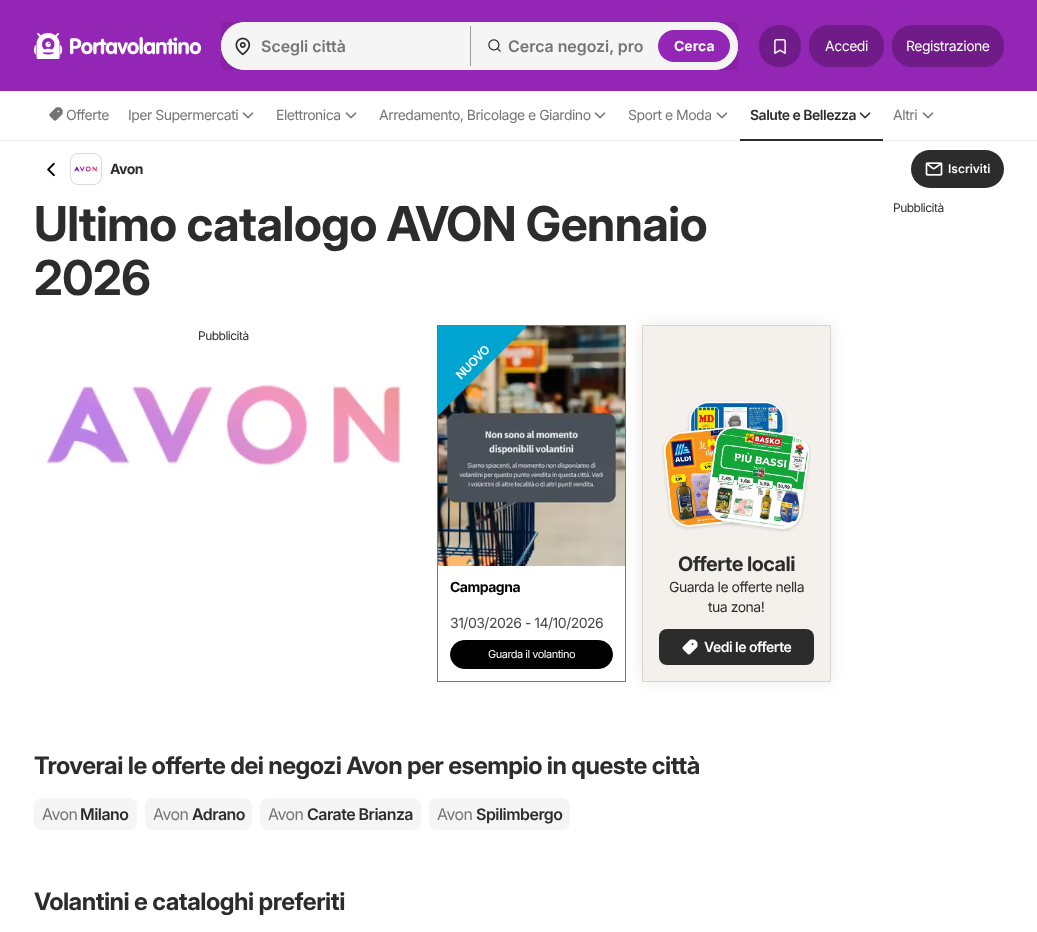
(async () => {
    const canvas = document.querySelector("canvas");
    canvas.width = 1037;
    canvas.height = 932;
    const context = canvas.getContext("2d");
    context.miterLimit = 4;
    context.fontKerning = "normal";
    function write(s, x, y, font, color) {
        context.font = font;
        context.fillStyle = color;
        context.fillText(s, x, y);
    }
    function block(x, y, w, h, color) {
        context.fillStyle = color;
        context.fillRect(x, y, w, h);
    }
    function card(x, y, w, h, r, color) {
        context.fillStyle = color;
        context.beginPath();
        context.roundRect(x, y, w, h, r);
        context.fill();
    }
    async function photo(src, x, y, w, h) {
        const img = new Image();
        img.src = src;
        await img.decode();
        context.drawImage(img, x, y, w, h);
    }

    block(0, 0, 1037, 932, "rgb(255, 255, 255)");
    block(0, 0, 1037, 91, "rgb(148, 38, 182)");
    await photo("media/1.png", 34, 33, 29, 26);
    context.letterSpacing = "-0.5px";
    write("Portavolantino", 69, 54, "bold 22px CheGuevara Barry", "rgb(255, 255, 255)");
    card(221, 22, 517, 48, 24, "rgb(255, 255, 255)");
    block(221, 22, 517, 48, "rgba(0, 0, 0, 0.04)");
    context.fillStyle = "rgb(255, 255, 255)";
    context.beginPath();
    context.roundRect(221, 22, 249, 48, [24, 0, 0, 24]);
    context.fill();
    block(221, 22, 249, 48, "rgba(0, 0, 0, 0.04)");
    await photo("media/2.png", 235, 37, 16, 19);
    context.letterSpacing = "0px";
    write("Scegli città", 261, 52, "600 16px Inter", "rgb(117, 117, 117)");
    block(470, 26, 1, 40, "rgb(157, 157, 157)");
    context.fillStyle = "rgb(255, 255, 255)";
    context.beginPath();
    context.roundRect(471, 22, 267, 48, [0, 24, 24, 0]);
    context.fill();
    block(471, 22, 267, 48, "rgba(0, 0, 0, 0.04)");
    await photo("media/3.png", 488, 39, 13, 13);
    write("Cerca negozi, pro", 508, 52, "600 16px Inter", "rgb(117, 117, 117)");
    card(658, 30, 72, 32, 16, "rgb(148, 38, 182)");
    write("Cerca", 674, 51, "bold 14px Inter", "rgb(255, 255, 255)");
    card(759, 25, 42, 42, 20, "rgb(111, 28, 136)");
    await photo("media/4.png", 774, 39, 12, 15);
    card(809, 25, 75, 42, 20, "rgb(111, 28, 136)");
    context.letterSpacing = "-0.5px";
    write("Accedi", 825, 51, "14px Inter", "rgb(255, 255, 255)");
    card(892, 25, 112, 42, 20, "rgb(111, 28, 136)");
    write("Registrazione", 906, 51, "14px Inter", "rgb(255, 255, 255)");
    block(0, 140, 1037, 1, "rgb(235, 235, 235)");
    await photo("media/5.png", 49, 107, 14, 14);
    write("Offerte", 66, 120, "14px Inter", "rgb(117, 117, 117)");
    write("Iper Supermercati", 128, 120, "14px Inter", "rgb(117, 117, 117)");
    await photo("media/6.png", 242, 112, 12, 7);
    write("Elettronica", 276, 120, "14px Inter", "rgb(117, 117, 117)");
    await photo("media/6.png", 345, 112, 12, 7);
    write("Arredamento, Bricolage e Giardino", 379, 120, "14px Inter", "rgb(117, 117, 117)");
    await photo("media/6.png", 594, 112, 12, 7);
    write("Sport e Moda", 628, 120, "14px Inter", "rgb(117, 117, 117)");
    await photo("media/6.png", 716, 112, 12, 7);
    block(740, 139, 143, 2, "rgb(44, 44, 44)");
    write("Salute e Bellezza", 750, 120, "600 14px 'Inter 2'", "rgb(44, 44, 44)");
    await photo("media/7.png", 859, 112, 12, 7);
    write("Altri", 893, 120, "14px Inter", "rgb(117, 117, 117)");
    await photo("media/6.png", 922, 112, 12, 7);
    await photo("media/8.png", 47, 162, 8, 15);
    context.beginPath();
    context.roundRect(70.5, 153.5, 31, 31, 7.5);
    context.strokeStyle = "rgb(217, 217, 217)";
    context.stroke();
    await photo("media/9.png", 74, 166, 23, 6);
    write("Avon", 110, 174, "bold 14px Inter", "rgb(44, 44, 44)");
    card(911, 150, 93, 38, 19, "rgb(44, 44, 44)");
    await photo("media/10.png", 925, 162, 18, 14);
    context.letterSpacing = "0px";
    write("Iscriviti", 948, 173, "600 12px 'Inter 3'", "rgb(255, 255, 255)");
    context.letterSpacing = "-0.5px";
    write("Ultimo catalogo AVON Gennaio", 34, 241, "bold 48px 'Inter 2'", "rgb(44, 44, 44)");
    write("2026", 34, 295, "bold 48px 'Inter 2'", "rgb(44, 44, 44)");
    await photo("media/11.png", 44, 383, 357, 82);
    write("Pubblicità", 198, 340, "12px Inter", "rgb(44, 44, 44)");
    context.strokeStyle = "rgb(0, 163, 209)";
    context.strokeRect(437.5, 325.5, 188, 356);
    await photo("media/12.png", 438, 326, 187, 240);
    context.save();
    context.beginPath();
    context.rect(438, 326, 187, 240);
    context.clip();
    context.fillStyle = "rgb(0, 164, 209)";
    context.beginPath();
    context.moveTo(347, 365);
    context.lineTo(475, 236);
    context.lineTo(546, 307);
    context.lineTo(418, 436);
    context.closePath();
    context.fill();
    context.restore();
    context.font = "600 12px 'Inter 2'";
    context.fillStyle = "rgb(255, 255, 255)";
    context.save();
    context.translate(461, 380);
    context.rotate(-45 * Math.PI / 180);
    context.fillText("NUOVO", 0, 0);
    context.restore();
    write("Campagna", 450, 592, "bold 14px Inter", "rgb(0, 0, 0)");
    write("31/03/2026 - 14/10/2026", 450, 628, "14px Inter", "rgb(68, 68, 68)");
    context.fillStyle = "rgb(0, 0, 0)";
    context.beginPath();
    context.roundRect(450.5, 640.5, 162, 28, 14);
    context.fill();
    context.strokeStyle = "rgb(0, 0, 0)";
    context.stroke();
    write("Guarda il volantino", 488, 658, "11px Inter", "rgb(255, 255, 255)");
    context.fillStyle = "rgba(0, 0, 0, 0.08)";
    context.filter = "blur(8px)";
    context.beginPath();
    context.rect(642, 325, 189, 357);
    context.fill();
    context.filter = "none";
    context.fillStyle = "rgb(244, 240, 235)";
    context.beginPath();
    context.rect(642.5, 325.5, 188, 356);
    context.fill();
    context.strokeStyle = "rgb(215, 211, 207)";
    context.stroke();
    await photo("media/13.png", 662, 400, 149, 132);
    write("Offerte locali", 678, 571, "bold 20px 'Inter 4'", "rgb(44, 44, 44)");
    write("Guarda le offerte nella", 669, 592, "14px Inter", "rgb(44, 44, 44)");
    write("tua zona!", 708, 612, "14px Inter", "rgb(44, 44, 44)");
    card(659, 629, 155, 36, 8, "rgb(44, 44, 44)");
    await photo("media/14.png", 682, 639, 16, 16);
    write("Vedi le offerte", 704, 652, "600 14px 'Inter 2'", "rgb(255, 255, 255)");
    write("Troverai le offerte dei negozi Avon per esempio in queste città", 34, 774, "bold 24px 'Inter 3'", "rgb(44, 44, 44)");
    card(34, 798, 103, 32, 8, "rgb(245, 245, 245)");
    write("Avon", 42, 820, "16px 'Inter 2'", "rgb(117, 117, 117)");
    write("Milano", 80, 820, "600 16px Inter", "rgb(44, 44, 44)");
    card(145, 798, 107, 32, 8, "rgb(245, 245, 245)");
    write("Avon", 153, 820, "16px 'Inter 2'", "rgb(117, 117, 117)");
    write("Adrano", 192, 820, "600 16px Inter", "rgb(44, 44, 44)");
    card(260, 798, 161, 32, 8, "rgb(245, 245, 245)");
    write("Avon", 268, 820, "16px 'Inter 2'", "rgb(117, 117, 117)");
    write("Carate Brianza", 307, 820, "600 16px Inter", "rgb(44, 44, 44)");
    card(429, 798, 141, 32, 8, "rgb(245, 245, 245)");
    write("Avon", 437, 820, "16px 'Inter 2'", "rgb(117, 117, 117)");
    write("Spilimbergo", 476, 820, "600 16px Inter", "rgb(44, 44, 44)");
    write("Volantini e cataloghi preferiti", 34, 910, "bold 24px 'Inter 3'", "rgb(44, 44, 44)");
    write("Pubblicità", 893, 212, "12px Inter", "rgb(44, 44, 44)");
})();
